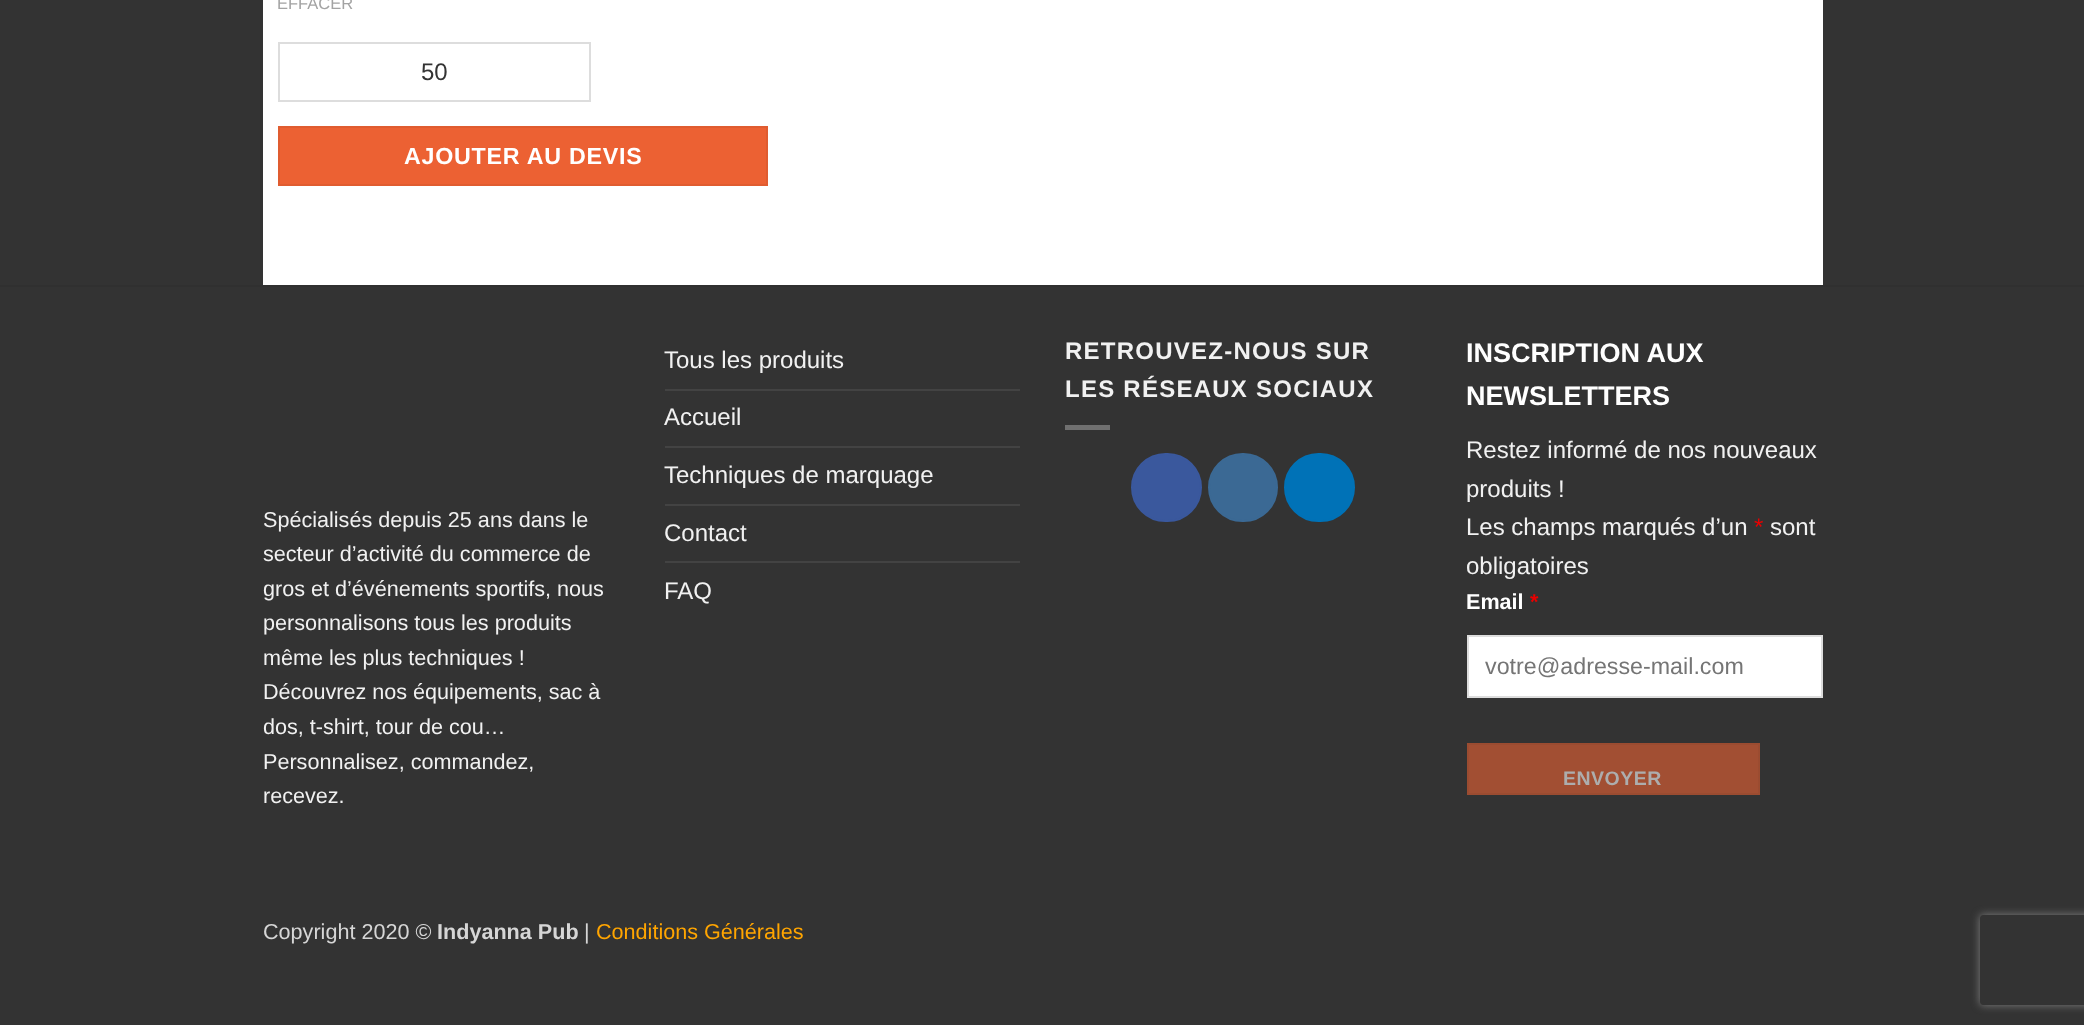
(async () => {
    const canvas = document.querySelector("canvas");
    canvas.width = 2084;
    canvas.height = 1025;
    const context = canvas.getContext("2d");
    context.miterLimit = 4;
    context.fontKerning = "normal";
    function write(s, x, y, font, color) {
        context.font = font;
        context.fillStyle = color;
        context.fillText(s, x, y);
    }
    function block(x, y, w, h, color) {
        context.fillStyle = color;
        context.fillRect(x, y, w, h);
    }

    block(0, 0, 2084, 1025, "rgb(51, 51, 51)");
    block(263, 0, 1560, 285, "rgb(255, 255, 255)");
    write("EFFACER", 277, 9, "16.5px Liberation Sans", "rgb(163, 163, 163)");
    context.strokeStyle = "rgb(221, 221, 221)";
    context.lineWidth = 2;
    context.strokeRect(279, 43, 311, 58);
    write("50", 421, 80, "24px Liberation Sans", "rgb(51, 51, 51)");
    context.fillStyle = "rgb(236, 97, 51)";
    context.beginPath();
    context.rect(279, 127, 488, 58);
    context.fill();
    context.strokeStyle = "rgb(224, 92, 48)";
    context.stroke();
    context.letterSpacing = "0.75px";
    write("AJOUTER AU DEVIS", 404, 164, "bold 23.25px Liberation Sans", "rgb(255, 255, 255)");
    block(0, 285, 2084, 2, "rgb(48, 48, 48)");
    context.letterSpacing = "0px";
    write("Tous les produits", 664, 368, "24px Liberation Sans", "rgb(241, 241, 241)");
    block(665, 389, 355, 2, "rgb(67, 67, 67)");
    write("Accueil", 664, 425, "24px Liberation Sans", "rgb(241, 241, 241)");
    block(665, 446, 355, 2, "rgb(67, 67, 67)");
    write("Techniques de marquage", 664, 483, "24px Liberation Sans", "rgb(241, 241, 241)");
    block(665, 504, 355, 2, "rgb(67, 67, 67)");
    write("Contact", 664, 541, "24px Liberation Sans", "rgb(241, 241, 241)");
    block(665, 561, 355, 2, "rgb(67, 67, 67)");
    write("FAQ", 664, 599, "24px Liberation Sans", "rgb(241, 241, 241)");
    context.letterSpacing = "1.25px";
    write("RETROUVEZ-NOUS SUR", 1065, 359, "bold 24px Liberation Sans", "rgb(241, 241, 241)");
    write("LES RÉSEAUX SOCIAUX", 1065, 397, "bold 24px Liberation Sans", "rgb(241, 241, 241)");
    block(1065, 425, 45, 5, "rgb(112, 112, 112)");
    context.fillStyle = "rgb(58, 88, 157)";
    context.beginPath();
    context.roundRect(1132, 454, 69, 67, 33.5);
    context.fill();
    context.strokeStyle = "rgb(58, 88, 157)";
    context.stroke();
    context.fillStyle = "rgb(59, 105, 148)";
    context.beginPath();
    context.roundRect(1209, 454, 68, 67, 33.5);
    context.fill();
    context.strokeStyle = "rgb(59, 105, 148)";
    context.stroke();
    context.fillStyle = "rgb(0, 114, 183)";
    context.beginPath();
    context.roundRect(1285, 454, 69, 67, 33.5);
    context.fill();
    context.strokeStyle = "rgb(0, 114, 183)";
    context.stroke();
    context.letterSpacing = "0px";
    write("INSCRIPTION AUX", 1466, 362, "bold 27px Liberation Sans", "rgb(255, 255, 255)");
    write("NEWSLETTERS", 1466, 405, "bold 27px Liberation Sans", "rgb(255, 255, 255)");
    write("Restez informé de nos nouveaux", 1466, 458, "24px Liberation Sans", "rgb(241, 241, 241)");
    write("produits !", 1466, 497, "24px Liberation Sans", "rgb(241, 241, 241)");
    write("Les champs marqués d’un", 1466, 535, "24px Liberation Sans", "rgb(241, 241, 241)");
    write("*", 1754, 535, "24px Liberation Sans", "rgb(232, 0, 0)");
    write("sont", 1770, 535, "24px Liberation Sans", "rgb(241, 241, 241)");
    write("obligatoires", 1466, 574, "24px Liberation Sans", "rgb(241, 241, 241)");
    write("Email", 1466, 609, "bold 21.6px Liberation Sans", "rgb(255, 255, 255)");
    write("*", 1530, 609, "bold 21.6px Liberation Sans", "rgb(232, 0, 0)");
    context.fillStyle = "rgb(255, 255, 255)";
    context.beginPath();
    context.rect(1468, 636, 354, 61);
    context.fill();
    context.strokeStyle = "rgb(221, 221, 221)";
    context.stroke();
    write("votre@adresse-mail.com", 1485, 674, "23.25px Liberation Sans", "rgb(117, 117, 117)");
    context.fillStyle = "rgb(162, 79, 51)";
    context.beginPath();
    context.rect(1468, 744, 291, 50);
    context.fill();
    context.strokeStyle = "rgb(155, 76, 49)";
    context.stroke();
    context.letterSpacing = "0.5px";
    write("ENVOYER", 1563, 785, "bold 19.5px Liberation Sans", "rgb(173, 173, 173)");
    context.letterSpacing = "0px";
    write("Spécialisés depuis 25 ans dans le", 263, 527, "21.6px Liberation Sans", "rgb(241, 241, 241)");
    write("secteur d’activité du commerce de", 263, 561, "21.6px Liberation Sans", "rgb(241, 241, 241)");
    write("gros et d’événements sportifs, nous", 263, 596, "21.6px Liberation Sans", "rgb(241, 241, 241)");
    write("personnalisons tous les produits", 263, 630, "21.6px Liberation Sans", "rgb(241, 241, 241)");
    write("même les plus techniques !", 263, 665, "21.6px Liberation Sans", "rgb(241, 241, 241)");
    write("Découvrez nos équipements, sac à", 263, 699, "21.6px Liberation Sans", "rgb(241, 241, 241)");
    write("dos, t-shirt, tour de cou…", 263, 734, "21.6px Liberation Sans", "rgb(241, 241, 241)");
    write("Personnalisez, commandez,", 263, 769, "21.6px Liberation Sans", "rgb(241, 241, 241)");
    write("recevez.", 263, 803, "21.6px Liberation Sans", "rgb(241, 241, 241)");
    write("Copyright 2020 ©", 263, 939, "21.6px Liberation Sans", "rgb(214, 214, 214)");
    write("Indyanna Pub", 437, 939, "bold 21.6px Liberation Sans", "rgb(214, 214, 214)");
    write("|", 584, 939, "21.6px Liberation Sans", "rgb(214, 214, 214)");
    write("Conditions Générales", 596, 939, "21.6px Liberation Sans", "rgb(255, 165, 0)");
    context.save();
    context.beginPath();
    context.moveTo(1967, 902);
    context.lineTo(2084, 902);
    context.lineTo(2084, 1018);
    context.lineTo(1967, 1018);
    context.closePath();
    context.moveTo(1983, 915);
    context.lineTo(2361, 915);
    context.bezierCurveTo(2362.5, 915, 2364, 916.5, 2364, 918);
    context.lineTo(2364, 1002);
    context.bezierCurveTo(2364, 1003.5, 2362.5, 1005, 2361, 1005);
    context.lineTo(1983, 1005);
    context.bezierCurveTo(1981.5, 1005, 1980, 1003.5, 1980, 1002);
    context.lineTo(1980, 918);
    context.bezierCurveTo(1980, 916.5, 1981.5, 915, 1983, 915);
    context.closePath();
    context.clip("evenodd");
    context.fillStyle = "rgb(128, 128, 128)";
    context.filter = "blur(4px)";
    context.beginPath();
    context.roundRect(1980, 915, 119, 90, 3);
    context.fill();
    context.filter = "none";
    context.restore();
})();
